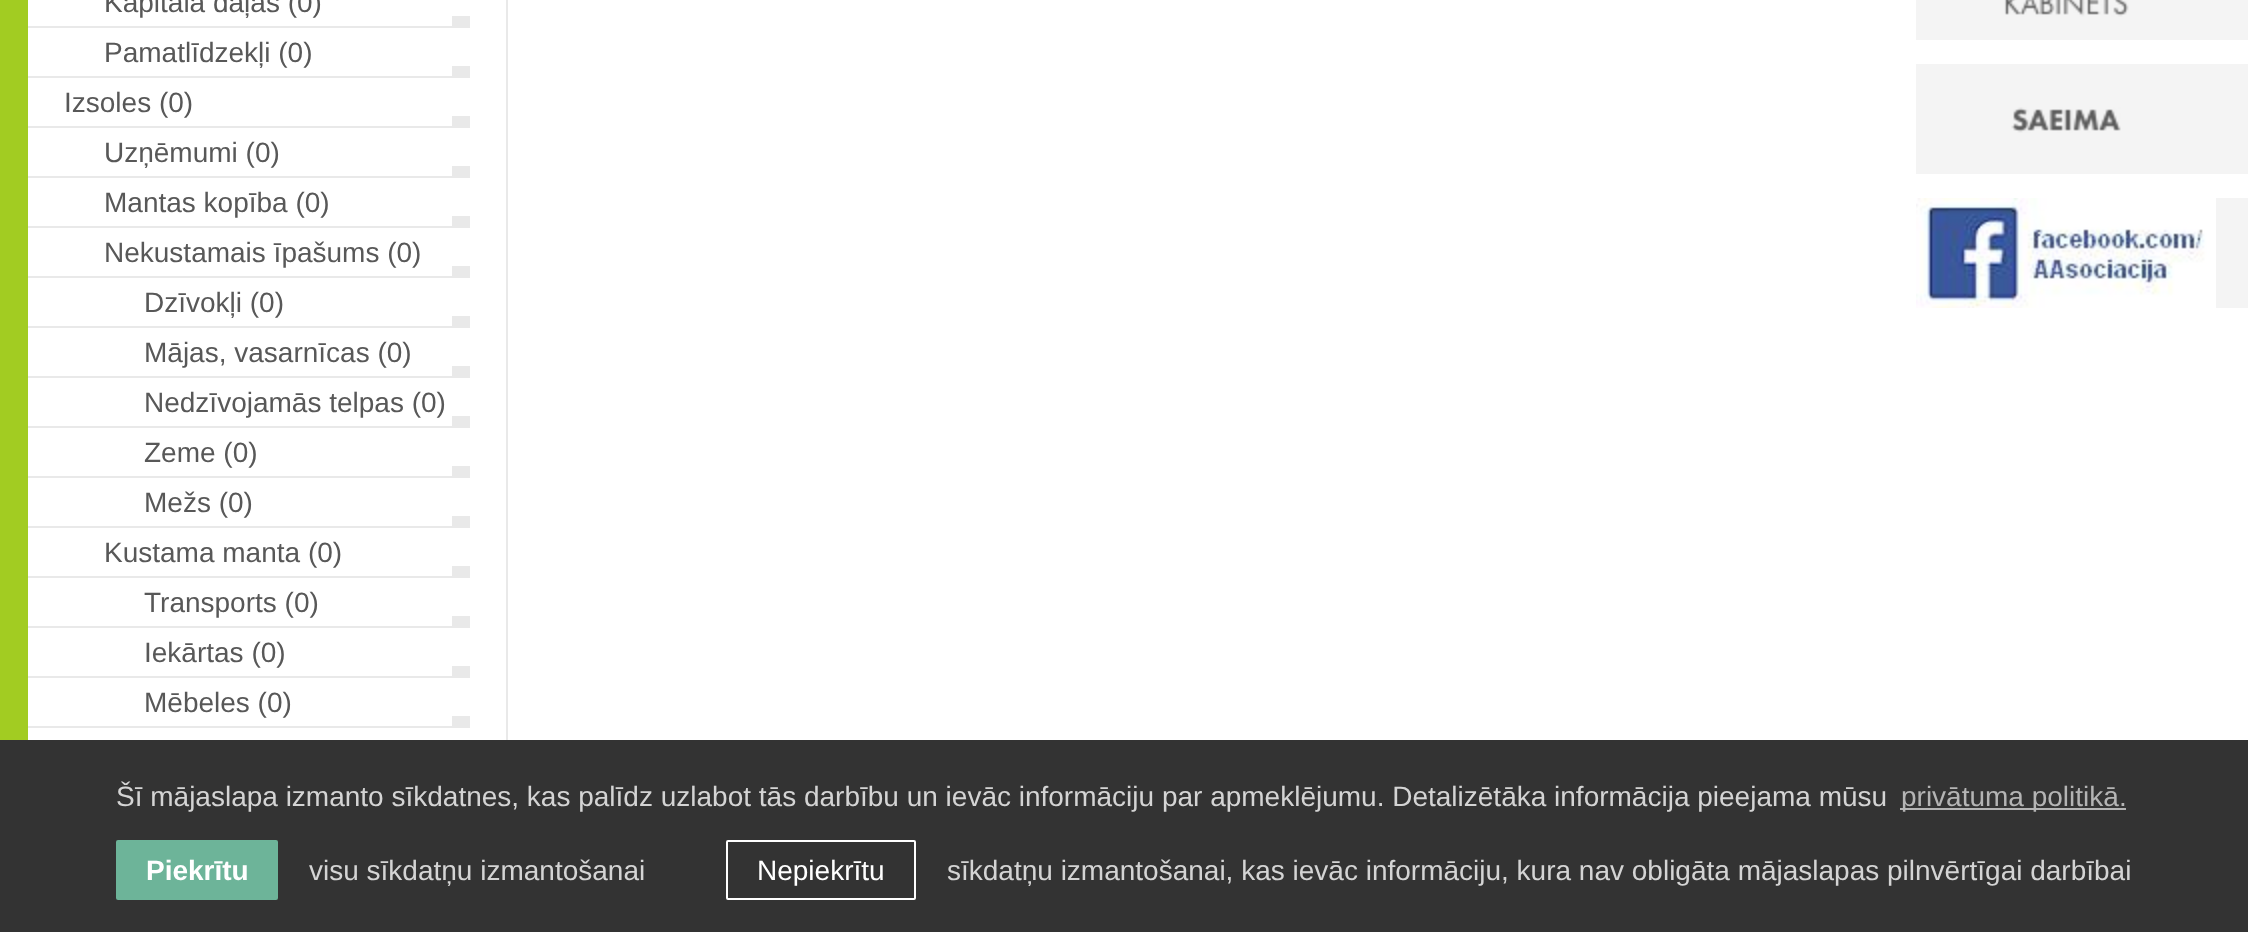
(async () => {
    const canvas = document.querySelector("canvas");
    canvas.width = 2248;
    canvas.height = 932;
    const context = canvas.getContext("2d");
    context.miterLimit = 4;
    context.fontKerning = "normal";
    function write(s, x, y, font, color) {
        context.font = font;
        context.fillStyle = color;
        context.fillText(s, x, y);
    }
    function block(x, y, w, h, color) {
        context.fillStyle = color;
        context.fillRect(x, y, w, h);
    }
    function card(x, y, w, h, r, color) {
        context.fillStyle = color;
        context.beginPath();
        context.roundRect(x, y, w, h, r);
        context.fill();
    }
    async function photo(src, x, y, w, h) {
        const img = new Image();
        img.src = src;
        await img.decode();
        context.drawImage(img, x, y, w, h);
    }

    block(0, 0, 2248, 932, "rgb(255, 255, 255)");
    block(0, 0, 28, 740, "rgb(162, 204, 34)");
    block(506, 0, 2, 740, "rgb(233, 233, 233)");
    block(452, 16, 18, 10, "rgb(233, 233, 233)");
    block(28, 26, 442, 2, "rgb(233, 233, 233)");
    write("Kapitāla daļas (0)", 104, 12, "28px Liberation Sans", "rgb(88, 88, 88)");
    block(452, 66, 18, 10, "rgb(233, 233, 233)");
    block(28, 76, 442, 2, "rgb(233, 233, 233)");
    write("Pamatlīdzekļi (0)", 104, 62, "28px Liberation Sans", "rgb(88, 88, 88)");
    block(452, 116, 18, 10, "rgb(233, 233, 233)");
    block(28, 126, 442, 2, "rgb(233, 233, 233)");
    write("Izsoles (0)", 64, 112, "28px Liberation Sans", "rgb(88, 88, 88)");
    block(452, 166, 18, 10, "rgb(233, 233, 233)");
    block(28, 176, 442, 2, "rgb(233, 233, 233)");
    write("Uzņēmumi (0)", 104, 162, "28px Liberation Sans", "rgb(88, 88, 88)");
    block(452, 216, 18, 10, "rgb(233, 233, 233)");
    block(28, 226, 442, 2, "rgb(233, 233, 233)");
    write("Mantas kopība (0)", 104, 212, "28px Liberation Sans", "rgb(88, 88, 88)");
    block(452, 266, 18, 10, "rgb(233, 233, 233)");
    block(28, 276, 442, 2, "rgb(233, 233, 233)");
    write("Nekustamais īpašums (0)", 104, 262, "28px Liberation Sans", "rgb(88, 88, 88)");
    block(452, 316, 18, 10, "rgb(233, 233, 233)");
    block(28, 326, 442, 2, "rgb(233, 233, 233)");
    write("Dzīvokļi (0)", 144, 312, "28px Liberation Sans", "rgb(88, 88, 88)");
    block(452, 366, 18, 10, "rgb(233, 233, 233)");
    block(28, 376, 442, 2, "rgb(233, 233, 233)");
    write("Mājas, vasarnīcas (0)", 144, 362, "28px Liberation Sans", "rgb(88, 88, 88)");
    block(452, 416, 18, 10, "rgb(233, 233, 233)");
    block(28, 426, 442, 2, "rgb(233, 233, 233)");
    write("Nedzīvojamās telpas (0)", 144, 412, "28px Liberation Sans", "rgb(88, 88, 88)");
    block(452, 466, 18, 10, "rgb(233, 233, 233)");
    block(28, 476, 442, 2, "rgb(233, 233, 233)");
    write("Zeme (0)", 144, 462, "28px Liberation Sans", "rgb(88, 88, 88)");
    block(452, 516, 18, 10, "rgb(233, 233, 233)");
    block(28, 526, 442, 2, "rgb(233, 233, 233)");
    write("Mežs (0)", 144, 512, "28px Liberation Sans", "rgb(88, 88, 88)");
    block(452, 566, 18, 10, "rgb(233, 233, 233)");
    block(28, 576, 442, 2, "rgb(233, 233, 233)");
    write("Kustama manta (0)", 104, 562, "28px Liberation Sans", "rgb(88, 88, 88)");
    block(452, 616, 18, 10, "rgb(233, 233, 233)");
    block(28, 626, 442, 2, "rgb(233, 233, 233)");
    write("Transports (0)", 144, 612, "28px Liberation Sans", "rgb(88, 88, 88)");
    block(452, 666, 18, 10, "rgb(233, 233, 233)");
    block(28, 676, 442, 2, "rgb(233, 233, 233)");
    write("Iekārtas (0)", 144, 662, "28px Liberation Sans", "rgb(88, 88, 88)");
    block(452, 716, 18, 10, "rgb(233, 233, 233)");
    block(28, 726, 442, 2, "rgb(233, 233, 233)");
    write("Mēbeles (0)", 144, 712, "28px Liberation Sans", "rgb(88, 88, 88)");
    block(1916, 0, 332, 40, "rgb(244, 244, 244)");
    await photo("media/1.png", 2004, 0, 125, 17);
    block(1916, 64, 332, 110, "rgb(244, 244, 244)");
    await photo("media/2.png", 2011, 107, 110, 26);
    block(2216, 198, 32, 110, "rgb(244, 244, 244)");
    await photo("media/3.png", 1916, 198, 300, 110);
    block(0, 740, 2248, 192, "rgb(51, 51, 51)");
    write("Šī mājaslapa izmanto sīkdatnes, kas palīdz uzlabot tās darbību un ievāc informāciju par apmeklējumu. Detalizētāka informācija pieejama mūsu", 116, 806, "28px Liberation Sans", "rgb(212, 212, 212)");
    block(1900, 808, 226, 2, "rgb(180, 180, 180)");
    write("privātuma politikā.", 1901, 806, "28px Liberation Sans", "rgb(180, 180, 180)");
    card(116, 840, 162, 60, 2, "rgb(109, 180, 153)");
    write("Piekrītu", 146, 880, "bold 28px Liberation Sans", "rgb(255, 255, 255)");
    write("visu sīkdatņu izmantošanai", 309, 880, "28px Liberation Sans", "rgb(212, 212, 212)");
    context.beginPath();
    context.roundRect(727, 841, 188, 58, 1);
    context.strokeStyle = "rgb(255, 255, 255)";
    context.lineWidth = 2;
    context.stroke();
    write("Nepiekrītu", 757, 880, "28px Liberation Sans", "rgb(255, 255, 255)");
    write("sīkdatņu izmantošanai, kas ievāc informāciju, kura nav obligāta mājaslapas pilnvērtīgai darbībai", 947, 880, "28px Liberation Sans", "rgb(212, 212, 212)");
})();
